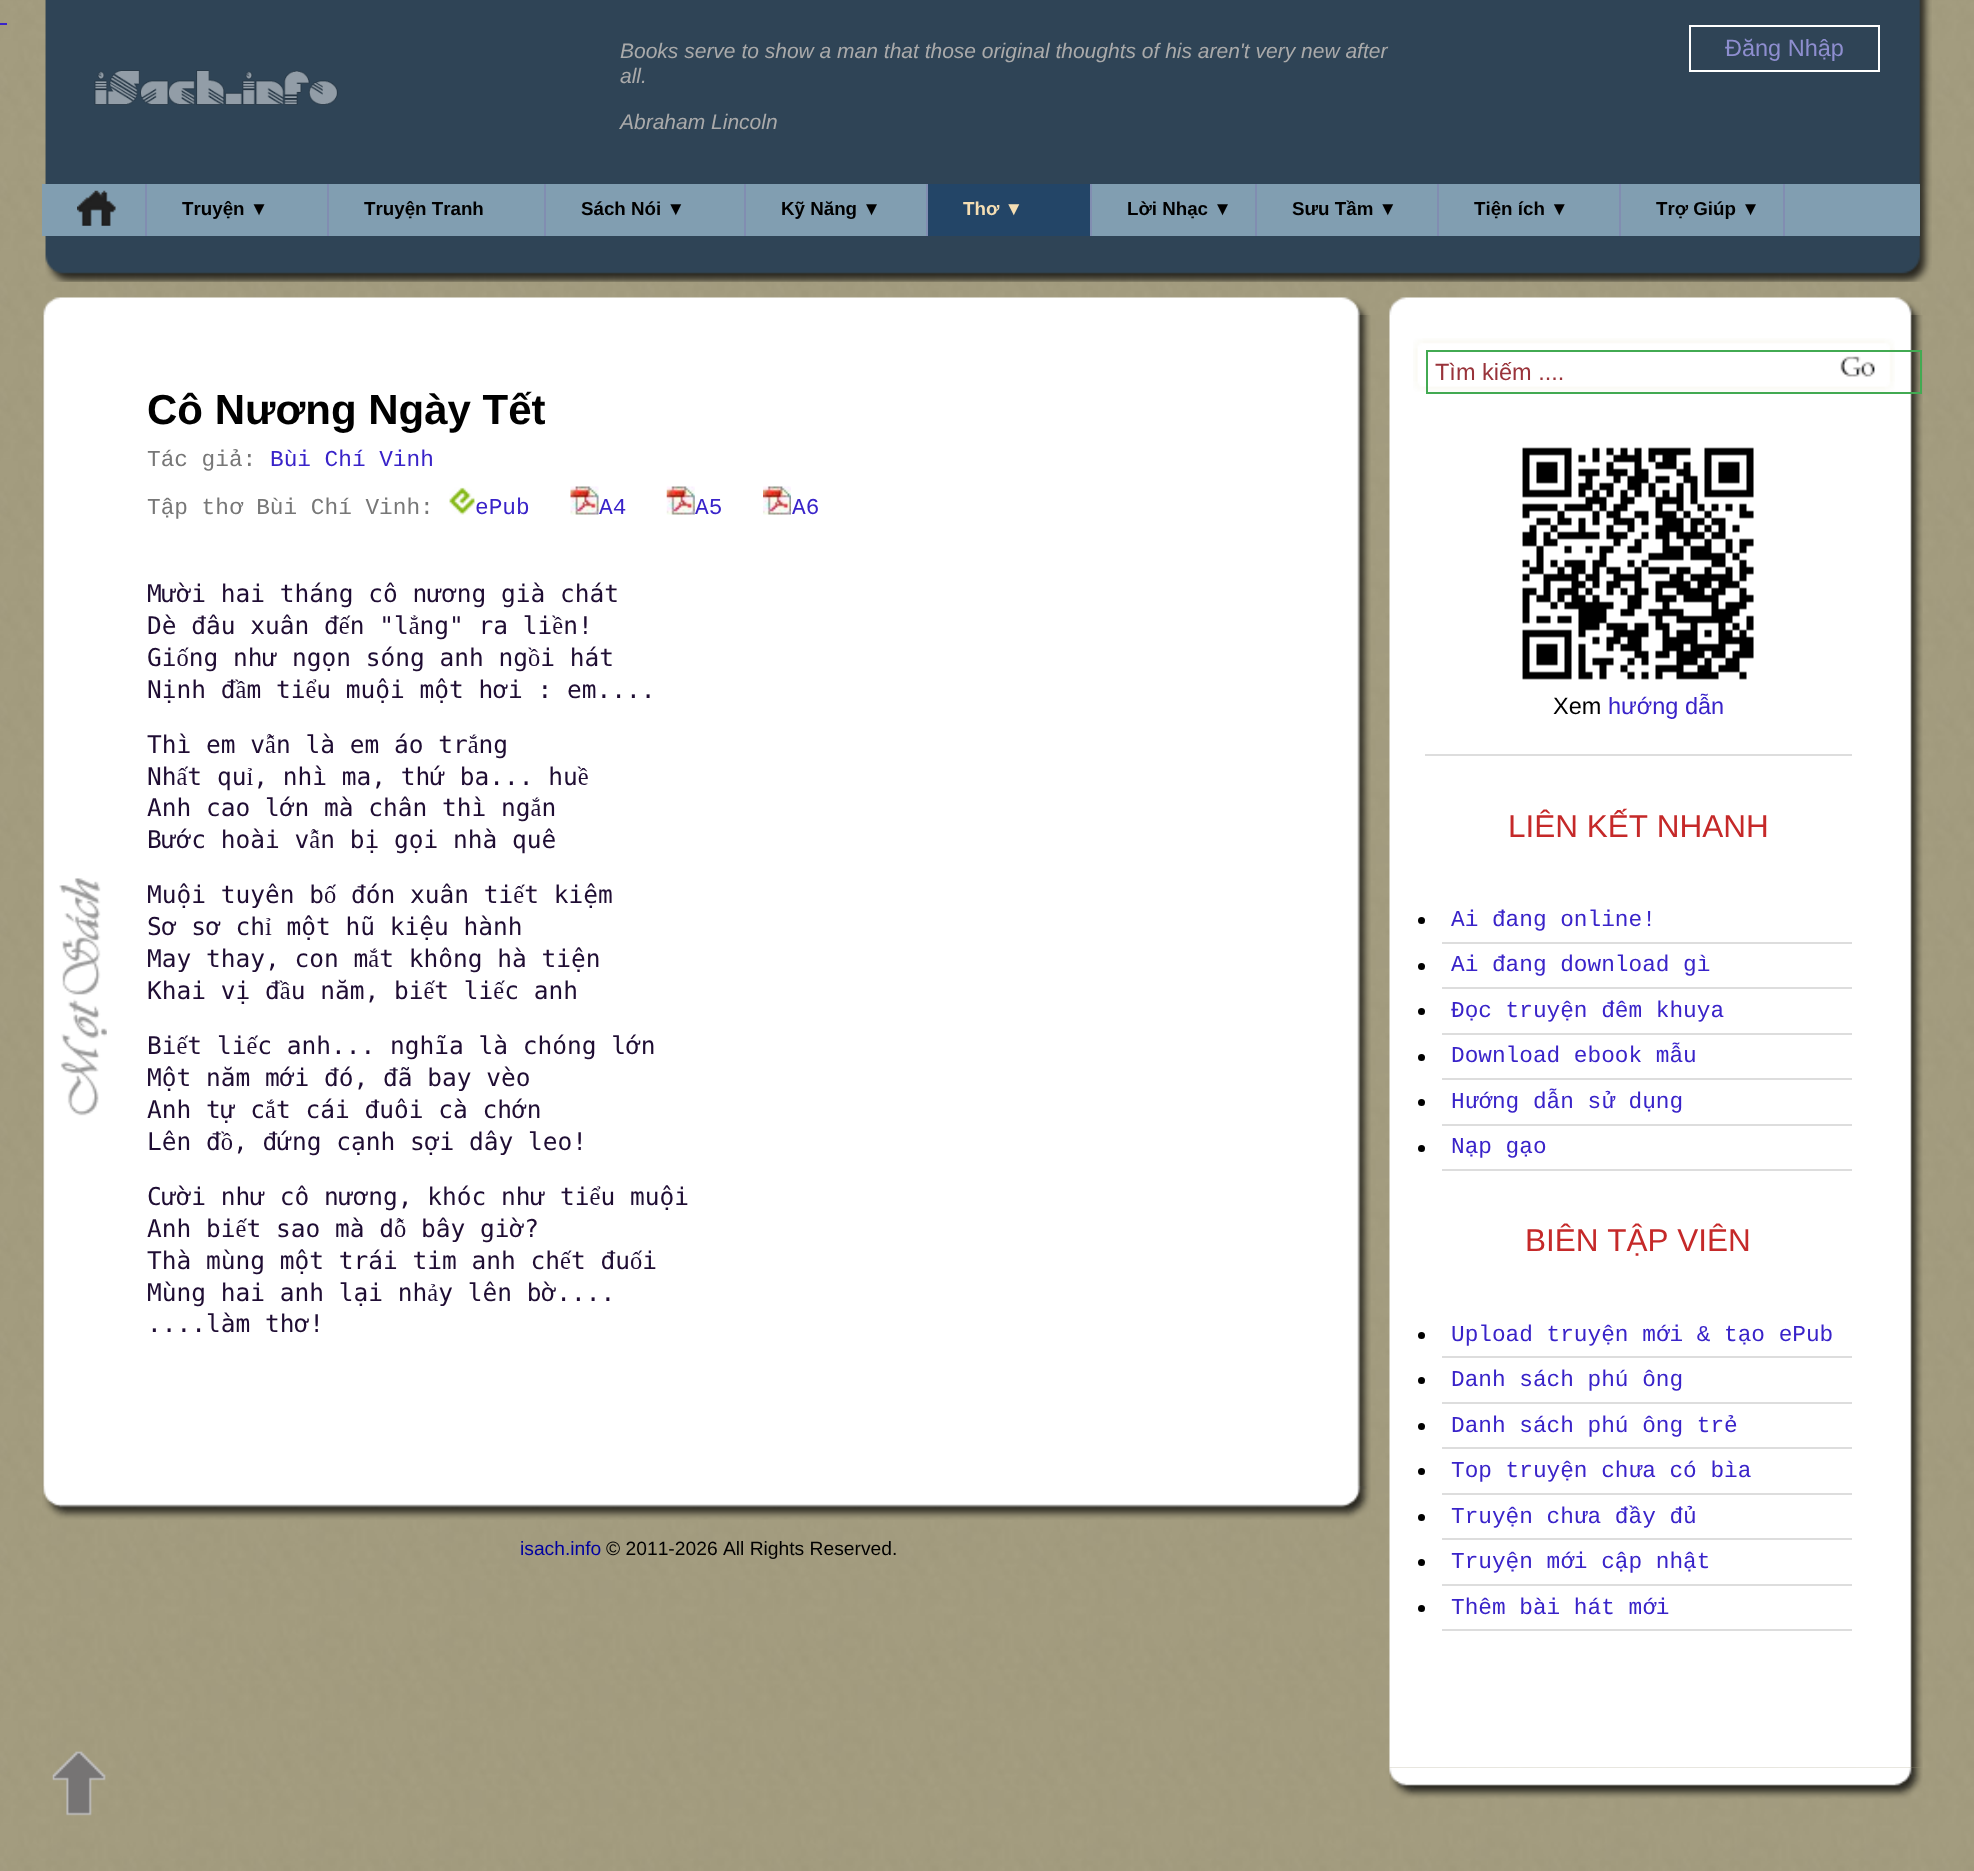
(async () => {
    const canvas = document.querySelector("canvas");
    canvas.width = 1974;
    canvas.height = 1871;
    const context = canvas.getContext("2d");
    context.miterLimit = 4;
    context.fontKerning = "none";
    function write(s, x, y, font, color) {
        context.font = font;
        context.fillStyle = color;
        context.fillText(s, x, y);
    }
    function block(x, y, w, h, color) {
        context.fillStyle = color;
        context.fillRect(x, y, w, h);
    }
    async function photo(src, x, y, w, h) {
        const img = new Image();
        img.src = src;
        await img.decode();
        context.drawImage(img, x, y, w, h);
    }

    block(0, 0, 1974, 1871, "rgb(255, 255, 255)");
    await photo("media/1.png", 0, 0, 1974, 1871);
    block(0, 23, 7, 2, "rgb(57, 35, 201)");
    await photo("media/2.png", 45, 0, 1887, 245);
    await photo("media/3.png", 94, 70, 244, 35);
    write("Books serve to show a man that those original thoughts of his aren't very new after", 620, 58, "italic 21px Liberation Sans", "rgb(170, 170, 170)");
    write("all.", 620, 83, "italic 21px Liberation Sans", "rgb(170, 170, 170)");
    write("Abraham Lincoln", 620, 129, "italic 21px Liberation Sans", "rgb(170, 170, 170)");
    write("Đăng Nhập", 1725, 56, "23.5px Liberation Sans", "rgb(142, 142, 207)");
    block(1689, 25, 191, 2, "rgb(255, 255, 255)");
    block(1689, 70, 154, 2, "rgb(255, 255, 255)");
    block(1689, 25, 2, 47, "rgb(255, 255, 255)");
    block(1878, 25, 2, 47, "rgb(255, 255, 255)");
    block(1843, 70, 37, 2, "rgb(255, 255, 255)");
    block(42, 184, 1878, 52, "rgb(129, 158, 177)");
    block(145, 184, 2, 52, "rgb(129, 141, 177)");
    await photo("media/4.png", 77, 190, 39, 36);
    block(327, 184, 2, 52, "rgb(129, 141, 177)");
    write("Truyện ▼", 182, 215, "bold 18.75px Liberation Sans", "rgb(0, 0, 0)");
    block(544, 184, 2, 52, "rgb(129, 141, 177)");
    write("Truyện Tranh", 364, 215, "bold 18.75px Liberation Sans", "rgb(0, 0, 0)");
    block(744, 184, 2, 52, "rgb(129, 141, 177)");
    write("Sách Nói ▼", 581, 215, "bold 18.75px Liberation Sans", "rgb(0, 0, 0)");
    block(926, 184, 2, 52, "rgb(129, 141, 177)");
    write("Kỹ Năng ▼", 781, 215, "bold 18.75px Liberation Sans", "rgb(0, 0, 0)");
    block(928, 184, 162, 52, "rgb(35, 69, 103)");
    block(1090, 184, 2, 52, "rgb(129, 141, 177)");
    write("Thơ ▼", 963, 215, "bold 18.75px Liberation Sans", "rgb(245, 222, 179)");
    block(1255, 184, 2, 52, "rgb(129, 141, 177)");
    write("Lời Nhạc ▼", 1127, 215, "bold 18.75px Liberation Sans", "rgb(0, 0, 0)");
    block(1437, 184, 2, 52, "rgb(129, 141, 177)");
    write("Sưu Tầm ▼", 1292, 215, "bold 18.75px Liberation Sans", "rgb(0, 0, 0)");
    block(1619, 184, 2, 52, "rgb(129, 141, 177)");
    write("Tiện ích ▼", 1474, 215, "bold 18.75px Liberation Sans", "rgb(0, 0, 0)");
    block(1783, 184, 2, 52, "rgb(129, 141, 177)");
    write("Trợ Giúp ▼", 1656, 215, "bold 18.75px Liberation Sans", "rgb(0, 0, 0)");
    await photo("media/5.png", 45, 245, 1887, 37);
    await photo("media/8.png", 42, 315, 1329, 1171);
    await photo("media/6.png", 59, 878, 48, 238);
    await photo("media/7.png", 43, 297, 1326, 18);
    write("Cô Nương Ngày Tết", 147, 424, "bold 42px Liberation Sans", "rgb(0, 0, 0)");
    write("Tác giả:", 147, 466, "22.75px Liberation Mono", "rgb(119, 119, 119)");
    write("Bùi Chí Vinh", 270, 466, "22.75px Liberation Mono", "rgb(57, 35, 201)");
    write("Tập thơ Bùi Chí Vinh:", 147, 514, "22.75px Liberation Mono", "rgb(119, 119, 119)");
    await photo("media/9.png", 449, 487, 26, 28);
    write("ePub", 475, 514, "22.75px Liberation Mono", "rgb(57, 35, 201)");
    await photo("media/10.png", 570, 486, 29, 29);
    write("A4", 599, 514, "22.75px Liberation Mono", "rgb(57, 35, 201)");
    await photo("media/11.png", 666, 486, 29, 29);
    write("A5", 695, 514, "22.75px Liberation Mono", "rgb(57, 35, 201)");
    await photo("media/12.png", 763, 486, 28, 29);
    write("A6", 792, 514, "22.75px Liberation Mono", "rgb(57, 35, 201)");
    write("Mười hai tháng cô nương già chát", 147, 602, "24.5px DejaVu Sans Mono", "rgb(31, 13, 51)");
    write("Dè đâu xuân đến \"lẳng\" ra liền!", 147, 634, "24.5px DejaVu Sans Mono", "rgb(31, 13, 51)");
    write("Giống như ngọn sóng anh ngồi hát", 147, 666, "24.5px DejaVu Sans Mono", "rgb(31, 13, 51)");
    write("Nịnh đầm tiểu muội một hơi : em....", 147, 698, "24.5px DejaVu Sans Mono", "rgb(31, 13, 51)");
    write("Thì em vẫn là em áo trắng", 147, 753, "24.5px DejaVu Sans Mono", "rgb(31, 13, 51)");
    write("Nhất quỉ, nhì ma, thứ ba... huề", 147, 785, "24.5px DejaVu Sans Mono", "rgb(31, 13, 51)");
    write("Anh cao lớn mà chân thì ngắn", 147, 816, "24.5px DejaVu Sans Mono", "rgb(31, 13, 51)");
    write("Bước hoài vẫn bị gọi nhà quê", 147, 848, "24.5px DejaVu Sans Mono", "rgb(31, 13, 51)");
    write("Muội tuyên bố đón xuân tiết kiệm", 147, 903, "24.5px DejaVu Sans Mono", "rgb(31, 13, 51)");
    write("Sơ sơ chỉ một hũ kiệu hành", 147, 935, "24.5px DejaVu Sans Mono", "rgb(31, 13, 51)");
    write("May thay, con mắt không hà tiện", 147, 967, "24.5px DejaVu Sans Mono", "rgb(31, 13, 51)");
    write("Khai vị đầu năm, biết liếc anh", 147, 999, "24.5px DejaVu Sans Mono", "rgb(31, 13, 51)");
    write("Biết liếc anh... nghĩa là chóng lớn", 147, 1054, "24.5px DejaVu Sans Mono", "rgb(31, 13, 51)");
    write("Một năm mới đó, đã bay vèo", 147, 1086, "24.5px DejaVu Sans Mono", "rgb(31, 13, 51)");
    write("Anh tự cắt cái đuôi cà chớn", 147, 1118, "24.5px DejaVu Sans Mono", "rgb(31, 13, 51)");
    write("Lên đồ, đứng cạnh sợi dây leo!", 147, 1150, "24.5px DejaVu Sans Mono", "rgb(31, 13, 51)");
    write("Cười như cô nương, khóc như tiểu muội", 147, 1205, "24.5px DejaVu Sans Mono", "rgb(31, 13, 51)");
    write("Anh biết sao mà dỗ bây giờ?", 147, 1237, "24.5px DejaVu Sans Mono", "rgb(31, 13, 51)");
    write("Thà mùng một trái tim anh chết đuối", 147, 1269, "24.5px DejaVu Sans Mono", "rgb(31, 13, 51)");
    write("Mùng hai anh lại nhảy lên bờ....", 147, 1301, "24.5px DejaVu Sans Mono", "rgb(31, 13, 51)");
    write("....làm thơ!", 147, 1332, "24.5px DejaVu Sans Mono", "rgb(31, 13, 51)");
    await photo("media/13.png", 42, 1486, 1329, 34);
    write("isach.info", 520, 1555, "19.25px Liberation Sans", "rgb(0, 0, 160)");
    write("© 2011-2026 All Rights Reserved.", 606, 1555, "19.25px Liberation Sans", "rgb(0, 0, 0)");
    await photo("media/14.png", 1389, 297, 532, 18);
    await photo("media/15.png", 1389, 315, 534, 1453);
    await photo("media/16.png", 1413, 338, 482, 54);
    context.strokeStyle = "rgb(66, 170, 82)";
    context.lineWidth = 2;
    context.strokeRect(1427, 351, 494, 42);
    write("Tìm kiếm ....", 1435, 380, "23.5px Liberation Sans", "rgb(153, 51, 58)");
    block(1425, 754, 427, 2, "rgb(221, 221, 221)");
    await photo("media/17.png", 1522, 447, 232, 233);
    write("Xem", 1553, 714, "23.5px Liberation Sans", "rgb(0, 0, 0)");
    write("hướng dẫn", 1608, 714, "23.5px Liberation Sans", "rgb(57, 35, 201)");
    write("LIÊN KẾT NHANH", 1508, 837, "31.5px Liberation Sans", "rgb(197, 41, 41)");
    block(1442, 942, 410, 2, "rgb(221, 221, 221)");
    context.fillStyle = "rgb(0, 0, 0)";
    context.beginPath();
    context.arc(1421.5, 920.5, 3.5, 0, Math.PI * 2);
    context.fill();
    write("Ai đang online!", 1451, 926, "22.75px Liberation Mono", "rgb(57, 35, 201)");
    block(1442, 987, 410, 2, "rgb(221, 221, 221)");
    context.fillStyle = "rgb(0, 0, 0)";
    context.beginPath();
    context.arc(1421.5, 966.5, 3.5, 0, Math.PI * 2);
    context.fill();
    write("Ai đang download gì", 1451, 971, "22.75px Liberation Mono", "rgb(57, 35, 201)");
    block(1442, 1033, 410, 2, "rgb(221, 221, 221)");
    context.fillStyle = "rgb(0, 0, 0)";
    context.beginPath();
    context.arc(1421.5, 1011.5, 3.5, 0, Math.PI * 2);
    context.fill();
    write("Đọc truyện đêm khuya", 1451, 1017, "22.75px Liberation Mono", "rgb(57, 35, 201)");
    block(1442, 1078, 410, 2, "rgb(221, 221, 221)");
    context.fillStyle = "rgb(0, 0, 0)";
    context.beginPath();
    context.arc(1421.5, 1057.5, 3.5, 0, Math.PI * 2);
    context.fill();
    write("Download ebook mẫu", 1451, 1062, "22.75px Liberation Mono", "rgb(57, 35, 201)");
    block(1442, 1124, 410, 2, "rgb(221, 221, 221)");
    context.fillStyle = "rgb(0, 0, 0)";
    context.beginPath();
    context.arc(1421.5, 1102.5, 3.5, 0, Math.PI * 2);
    context.fill();
    write("Hướng dẫn sử dụng", 1451, 1108, "22.75px Liberation Mono", "rgb(57, 35, 201)");
    block(1442, 1169, 410, 2, "rgb(221, 221, 221)");
    context.fillStyle = "rgb(0, 0, 0)";
    context.beginPath();
    context.arc(1421.5, 1148.5, 3.5, 0, Math.PI * 2);
    context.fill();
    write("Nạp gạo", 1451, 1153, "22.75px Liberation Mono", "rgb(57, 35, 201)");
    write("BIÊN TẬP VIÊN", 1525, 1251, "31.5px Liberation Sans", "rgb(197, 41, 41)");
    block(1442, 1356, 410, 2, "rgb(221, 221, 221)");
    context.fillStyle = "rgb(0, 0, 0)";
    context.beginPath();
    context.arc(1421.5, 1335.5, 3.5, 0, Math.PI * 2);
    context.fill();
    write("Upload truyện mới & tạo ePub", 1451, 1341, "22.75px Liberation Mono", "rgb(57, 35, 201)");
    block(1442, 1402, 410, 2, "rgb(221, 221, 221)");
    context.fillStyle = "rgb(0, 0, 0)";
    context.beginPath();
    context.arc(1421.5, 1380.5, 3.5, 0, Math.PI * 2);
    context.fill();
    write("Danh sách phú ông", 1451, 1386, "22.75px Liberation Mono", "rgb(57, 35, 201)");
    block(1442, 1447, 410, 2, "rgb(221, 221, 221)");
    context.fillStyle = "rgb(0, 0, 0)";
    context.beginPath();
    context.arc(1421.5, 1426.5, 3.5, 0, Math.PI * 2);
    context.fill();
    write("Danh sách phú ông trẻ", 1451, 1432, "22.75px Liberation Mono", "rgb(57, 35, 201)");
    block(1442, 1493, 410, 2, "rgb(221, 221, 221)");
    context.fillStyle = "rgb(0, 0, 0)";
    context.beginPath();
    context.arc(1421.5, 1471.5, 3.5, 0, Math.PI * 2);
    context.fill();
    write("Top truyện chưa có bìa", 1451, 1477, "22.75px Liberation Mono", "rgb(57, 35, 201)");
    block(1442, 1538, 410, 2, "rgb(221, 221, 221)");
    context.fillStyle = "rgb(0, 0, 0)";
    context.beginPath();
    context.arc(1421.5, 1517.5, 3.5, 0, Math.PI * 2);
    context.fill();
    write("Truyện chưa đầy đủ", 1451, 1523, "22.75px Liberation Mono", "rgb(57, 35, 201)");
    block(1442, 1584, 410, 2, "rgb(221, 221, 221)");
    context.fillStyle = "rgb(0, 0, 0)";
    context.beginPath();
    context.arc(1421.5, 1562.5, 3.5, 0, Math.PI * 2);
    context.fill();
    write("Truyện mới cập nhật", 1451, 1568, "22.75px Liberation Mono", "rgb(57, 35, 201)");
    block(1442, 1629, 410, 2, "rgb(221, 221, 221)");
    context.fillStyle = "rgb(0, 0, 0)";
    context.beginPath();
    context.arc(1421.5, 1608.5, 3.5, 0, Math.PI * 2);
    context.fill();
    write("Thêm bài hát mới", 1451, 1614, "22.75px Liberation Mono", "rgb(57, 35, 201)");
    await photo("media/18.png", 1389, 1767, 534, 32);
    await photo("media/19.png", 52, 1751, 54, 65);
})();
